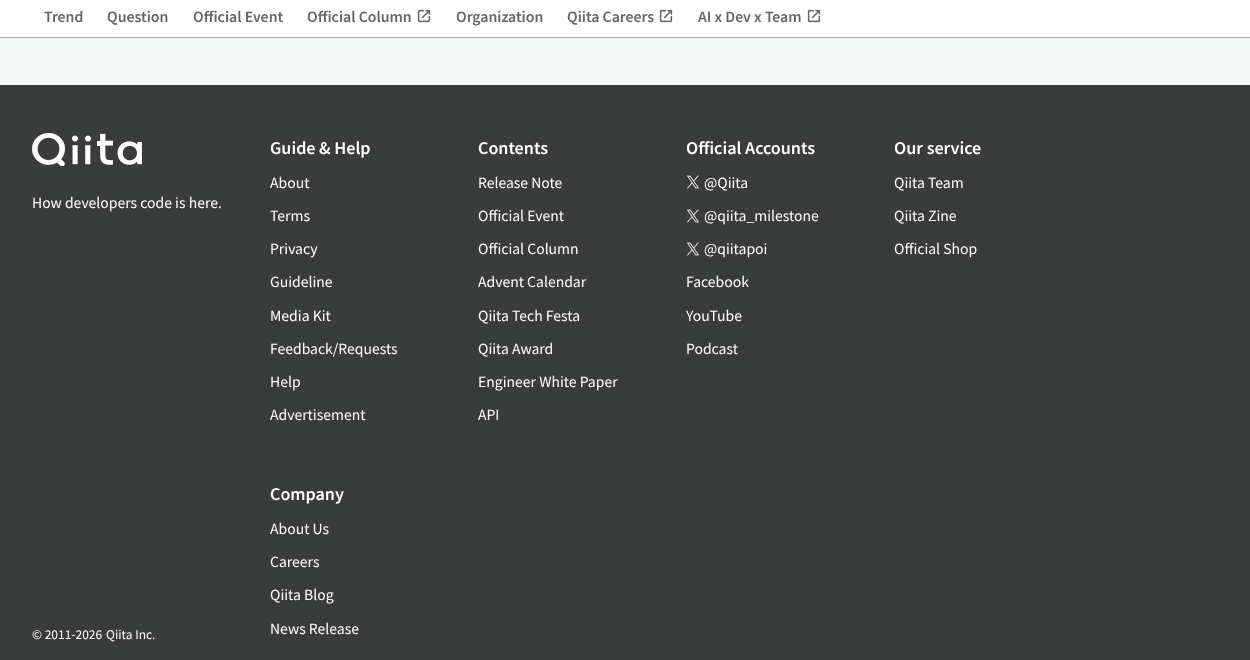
(async () => {
    const canvas = document.querySelector("canvas");
    canvas.width = 1250;
    canvas.height = 660;
    const context = canvas.getContext("2d");
    context.miterLimit = 4;
    context.fontKerning = "normal";
    function write(s, x, y, font, color) {
        context.font = font;
        context.fillStyle = color;
        context.fillText(s, x, y);
    }
    function block(x, y, w, h, color) {
        context.fillStyle = color;
        context.fillRect(x, y, w, h);
    }
    async function photo(src, x, y, w, h) {
        const img = new Image();
        img.src = src;
        await img.decode();
        context.drawImage(img, x, y, w, h);
    }

    block(0, 0, 1250, 660, "rgb(245, 246, 246)");
    context.strokeStyle = "rgb(225, 226, 226)";
    context.strokeRect(-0.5, -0.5, 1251, 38);
    context.fillStyle = "rgba(30, 33, 33, 0.25)";
    context.filter = "blur(0.5px)";
    context.beginPath();
    context.rect(0, -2, 1250, 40);
    context.fill();
    context.filter = "none";
    block(0, 0, 1250, 37, "rgb(255, 255, 255)");
    write("Trend", 44, 22, "600 14px Noto Sans JP", "rgb(102, 102, 102)");
    write("Question", 107, 22, "600 14px Noto Sans JP", "rgb(102, 102, 102)");
    write("Official Event", 193, 22, "600 14px Noto Sans JP", "rgb(102, 102, 102)");
    write("Official Column", 307, 22, "600 14px Noto Sans JP", "rgb(102, 102, 102)");
    await photo("media/1.png", 417, 9, 14, 14);
    write("Organization", 456, 22, "600 14px Noto Sans JP", "rgb(102, 102, 102)");
    write("Qiita Careers", 567, 22, "600 14px Noto Sans JP", "rgb(102, 102, 102)");
    await photo("media/1.png", 659, 9, 14, 14);
    write("AI x Dev x Team", 698, 22, "600 14px Noto Sans JP", "rgb(102, 102, 102)");
    await photo("media/1.png", 807, 9, 14, 14);
    block(0, 85, 1250, 575, "rgb(58, 60, 60)");
    await photo("media/2.png", 32, 133, 110, 33);
    write("How developers code is here.", 32, 208, "14px Noto Sans JP", "rgb(255, 255, 255)");
    write("© 2011-2026", 32, 639, "12px Noto Sans JP", "rgb(255, 255, 255)");
    write("Qiita Inc.", 106, 639, "12px Noto Sans JP", "rgb(255, 255, 255)");
    write("Guide & Help", 270, 154, "600 16px Noto Sans JP", "rgb(255, 255, 255)");
    write("About", 270, 188, "14px Noto Sans JP", "rgb(255, 255, 255)");
    write("Terms", 270, 221, "14px Noto Sans JP", "rgb(255, 255, 255)");
    write("Privacy", 270, 254, "14px Noto Sans JP", "rgb(255, 255, 255)");
    write("Guideline", 270, 287, "14px Noto Sans JP", "rgb(255, 255, 255)");
    write("Media Kit", 270, 321, "14px Noto Sans JP", "rgb(255, 255, 255)");
    write("Feedback/Requests", 270, 354, "14px Noto Sans JP", "rgb(255, 255, 255)");
    write("Help", 270, 387, "14px Noto Sans JP", "rgb(255, 255, 255)");
    write("Advertisement", 270, 420, "14px Noto Sans JP", "rgb(255, 255, 255)");
    write("Contents", 478, 154, "600 16px Noto Sans JP", "rgb(255, 255, 255)");
    write("Release Note", 478, 188, "14px Noto Sans JP", "rgb(255, 255, 255)");
    write("Official Event", 478, 221, "14px Noto Sans JP", "rgb(255, 255, 255)");
    write("Official Column", 478, 254, "14px Noto Sans JP", "rgb(255, 255, 255)");
    write("Advent Calendar", 478, 287, "14px Noto Sans JP", "rgb(255, 255, 255)");
    write("Qiita Tech Festa", 478, 321, "14px Noto Sans JP", "rgb(255, 255, 255)");
    write("Qiita Award", 478, 354, "14px Noto Sans JP", "rgb(255, 255, 255)");
    write("Engineer White Paper", 478, 387, "14px Noto Sans JP", "rgb(255, 255, 255)");
    write("API", 478, 420, "14px Noto Sans JP", "rgb(255, 255, 255)");
    write("Official Accounts", 686, 154, "600 16px Noto Sans JP", "rgb(255, 255, 255)");
    await photo("media/3.png", 686, 175, 14, 14);
    write("@Qiita", 704, 188, "14px Noto Sans JP", "rgb(255, 255, 255)");
    await photo("media/3.png", 686, 209, 14, 14);
    write("@qiita_milestone", 704, 221, "14px Noto Sans JP", "rgb(255, 255, 255)");
    await photo("media/3.png", 686, 242, 14, 14);
    write("@qiitapoi", 704, 254, "14px Noto Sans JP", "rgb(255, 255, 255)");
    write("Facebook", 686, 287, "14px Noto Sans JP", "rgb(255, 255, 255)");
    write("YouTube", 686, 321, "14px Noto Sans JP", "rgb(255, 255, 255)");
    write("Podcast", 686, 354, "14px Noto Sans JP", "rgb(255, 255, 255)");
    write("Our service", 894, 154, "600 16px Noto Sans JP", "rgb(255, 255, 255)");
    write("Qiita Team", 894, 188, "14px Noto Sans JP", "rgb(255, 255, 255)");
    write("Qiita Zine", 894, 221, "14px Noto Sans JP", "rgb(255, 255, 255)");
    write("Official Shop", 894, 254, "14px Noto Sans JP", "rgb(255, 255, 255)");
    write("Company", 270, 500, "600 16px Noto Sans JP", "rgb(255, 255, 255)");
    write("About Us", 270, 534, "14px Noto Sans JP", "rgb(255, 255, 255)");
    write("Careers", 270, 567, "14px Noto Sans JP", "rgb(255, 255, 255)");
    write("Qiita Blog", 270, 600, "14px Noto Sans JP", "rgb(255, 255, 255)");
    write("News Release", 270, 634, "14px Noto Sans JP", "rgb(255, 255, 255)");
})();
